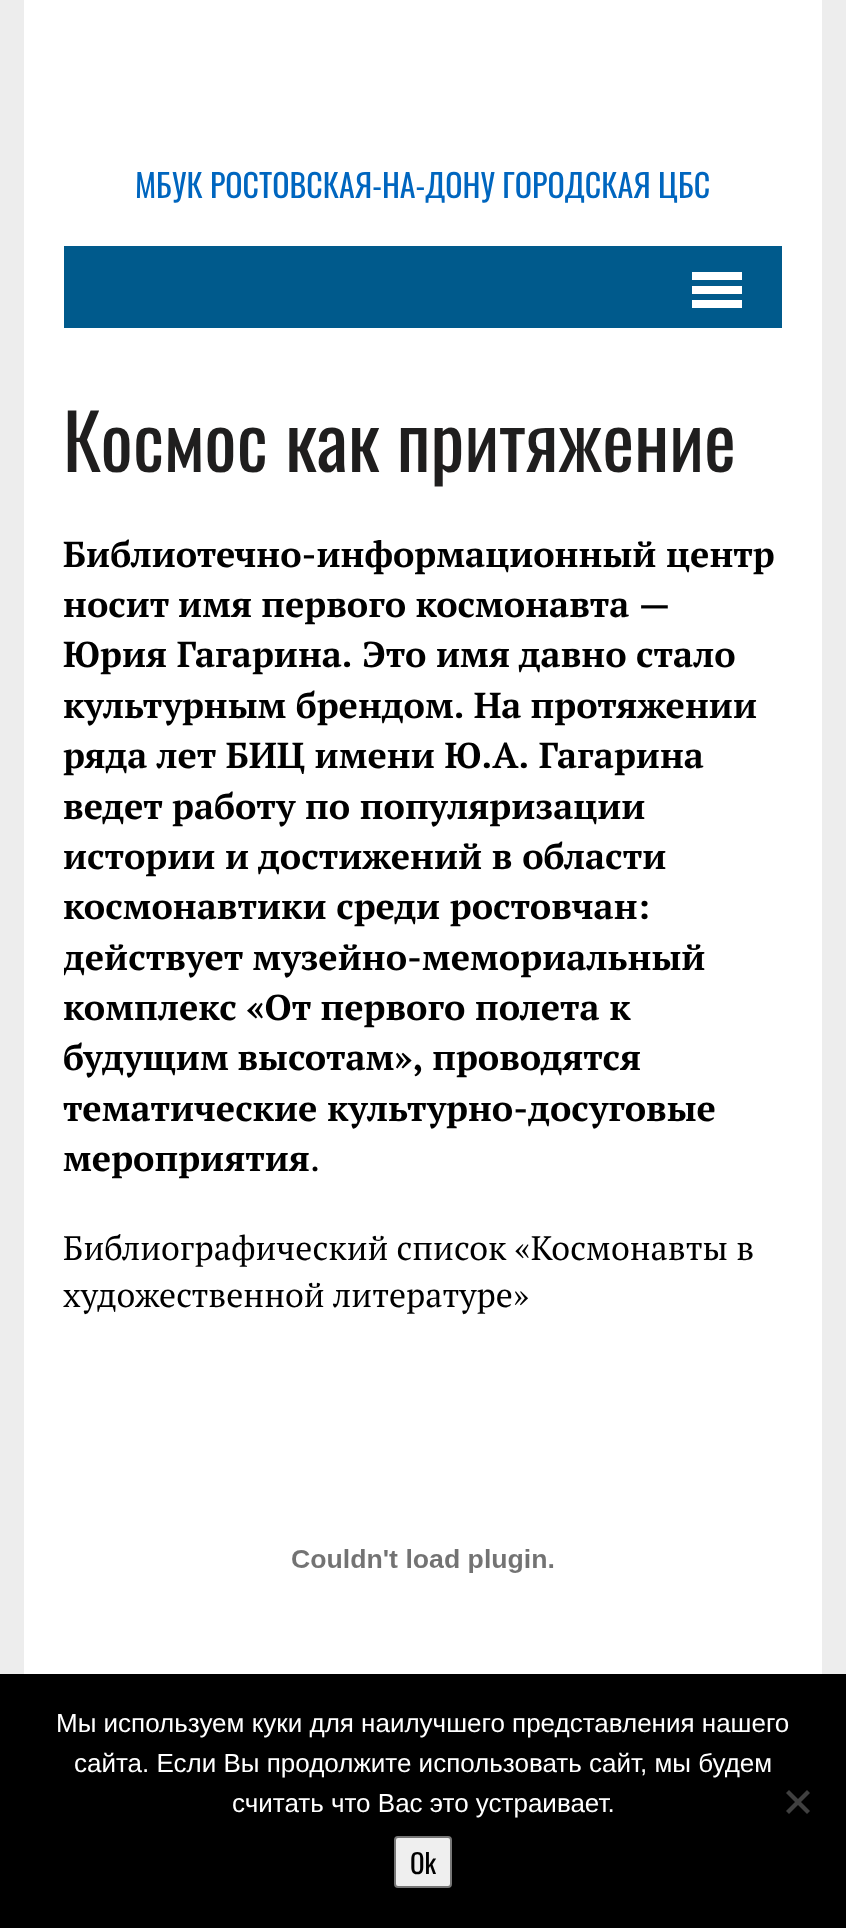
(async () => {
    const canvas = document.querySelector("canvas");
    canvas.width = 846;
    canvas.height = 1928;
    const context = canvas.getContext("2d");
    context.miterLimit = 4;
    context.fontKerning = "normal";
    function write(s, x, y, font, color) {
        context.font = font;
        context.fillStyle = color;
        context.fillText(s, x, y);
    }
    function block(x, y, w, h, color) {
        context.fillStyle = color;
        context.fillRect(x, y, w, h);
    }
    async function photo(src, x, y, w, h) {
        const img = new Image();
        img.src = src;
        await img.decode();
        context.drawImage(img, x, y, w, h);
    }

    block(0, 0, 846, 1928, "rgb(237, 237, 237)");
    block(24, 0, 798, 1674, "rgb(255, 255, 255)");
    write("МБУК РОСТОВСКАЯ-НА-ДОНУ ГОРОДСКАЯ ЦБС", 135, 198, "32px Oswald", "rgb(0, 102, 191)");
    block(64, 246, 718, 82, "rgb(0, 90, 140)");
    block(692, 272, 50, 8, "rgb(255, 255, 255)");
    block(692, 286, 50, 8, "rgb(255, 255, 255)");
    block(692, 300, 50, 8, "rgb(255, 255, 255)");
    write("Космос как притяжение", 63, 472, "76px Oswald", "rgb(31, 30, 30)");
    write("Библиотечно-информационный центр", 63, 567, "bold 36px PT Serif", "rgb(0, 0, 0)");
    context.wordSpacing = "-0.5px";
    write("носит имя первого космонавта —", 63, 617, "bold 36px PT Serif", "rgb(0, 0, 0)");
    context.wordSpacing = "0px";
    write("Юрия Гагарина. Это имя давно", 63, 667, "bold 36px PT Serif", "rgb(0, 0, 0)");
    write("стало", 636, 667, "bold 36px PT Serif", "rgb(0, 0, 0)");
    context.wordSpacing = "-0.5px";
    write("культурным брендом. На протяжении", 63, 718, "bold 36px PT Serif", "rgb(0, 0, 0)");
    context.wordSpacing = "0px";
    write("ряда лет БИЦ имени Ю.А. Гагарина", 63, 768, "bold 36px PT Serif", "rgb(0, 0, 0)");
    write("ведет работу по популяризации", 63, 819, "bold 36px PT Serif", "rgb(0, 0, 0)");
    write("истории и достижений в области", 63, 869, "bold 36px PT Serif", "rgb(0, 0, 0)");
    write("космонавтики среди ростовчан:", 63, 919, "bold 36px PT Serif", "rgb(0, 0, 0)");
    context.save();
    context.beginPath();
    context.rect(64, 390, 718, 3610);
    context.clip();
    write("действует музейно-мемориальный", 63, 970, "bold 36px PT Serif", "rgb(0, 0, 0)");
    context.restore();
    write("комплекс «От первого полета к", 63, 1020, "bold 36px PT Serif", "rgb(0, 0, 0)");
    context.wordSpacing = "-1px";
    write("будущим высотам», проводятся", 63, 1070, "bold 36px PT Serif", "rgb(0, 0, 0)");
    context.wordSpacing = "0px";
    write("тематические культурно-досуговые", 63, 1121, "bold 36px PT Serif", "rgb(0, 0, 0)");
    write("мероприятия", 63, 1171, "bold 36px PT Serif", "rgb(0, 0, 0)");
    write(".", 310, 1171, "36px PT Serif", "rgb(0, 0, 0)");
    write("Библиографический список «Космонавты в", 63, 1260, "34px PT Serif", "rgb(0, 0, 0)");
    write("художественной литературе»", 63, 1307, "34px PT Serif", "rgb(0, 0, 0)");
    await photo("media/1.png", 292, 1549, 262, 24);
    block(0, 1674, 846, 254, "rgb(0, 0, 0)");
    write("Мы используем куки для наилучшего представления нашего", 56, 1732, "26px Liberation Sans", "rgb(255, 255, 255)");
    write("сайта. Если Вы продолжите использовать сайт, мы будем", 74, 1772, "26px Liberation Sans", "rgb(255, 255, 255)");
    write("считать что Вас это устраивает.", 232, 1812, "26px Liberation Sans", "rgb(255, 255, 255)");
    context.fillStyle = "rgb(64, 64, 64)";
    context.beginPath();
    context.moveTo(807, 1790);
    context.lineTo(810, 1793);
    context.lineTo(789, 1814);
    context.lineTo(786, 1811);
    context.closePath();
    context.fill();
    context.beginPath();
    context.moveTo(786, 1793);
    context.lineTo(789, 1790);
    context.lineTo(810, 1811);
    context.lineTo(807, 1814);
    context.closePath();
    context.fill();
    context.fillStyle = "rgb(239, 239, 239)";
    context.beginPath();
    context.roundRect(395, 1837, 56, 50, 3);
    context.fill();
    context.strokeStyle = "rgb(118, 118, 118)";
    context.lineWidth = 2;
    context.stroke();
    write("Ok", 410, 1874, "27px Oswald", "rgb(0, 0, 0)");
})();
